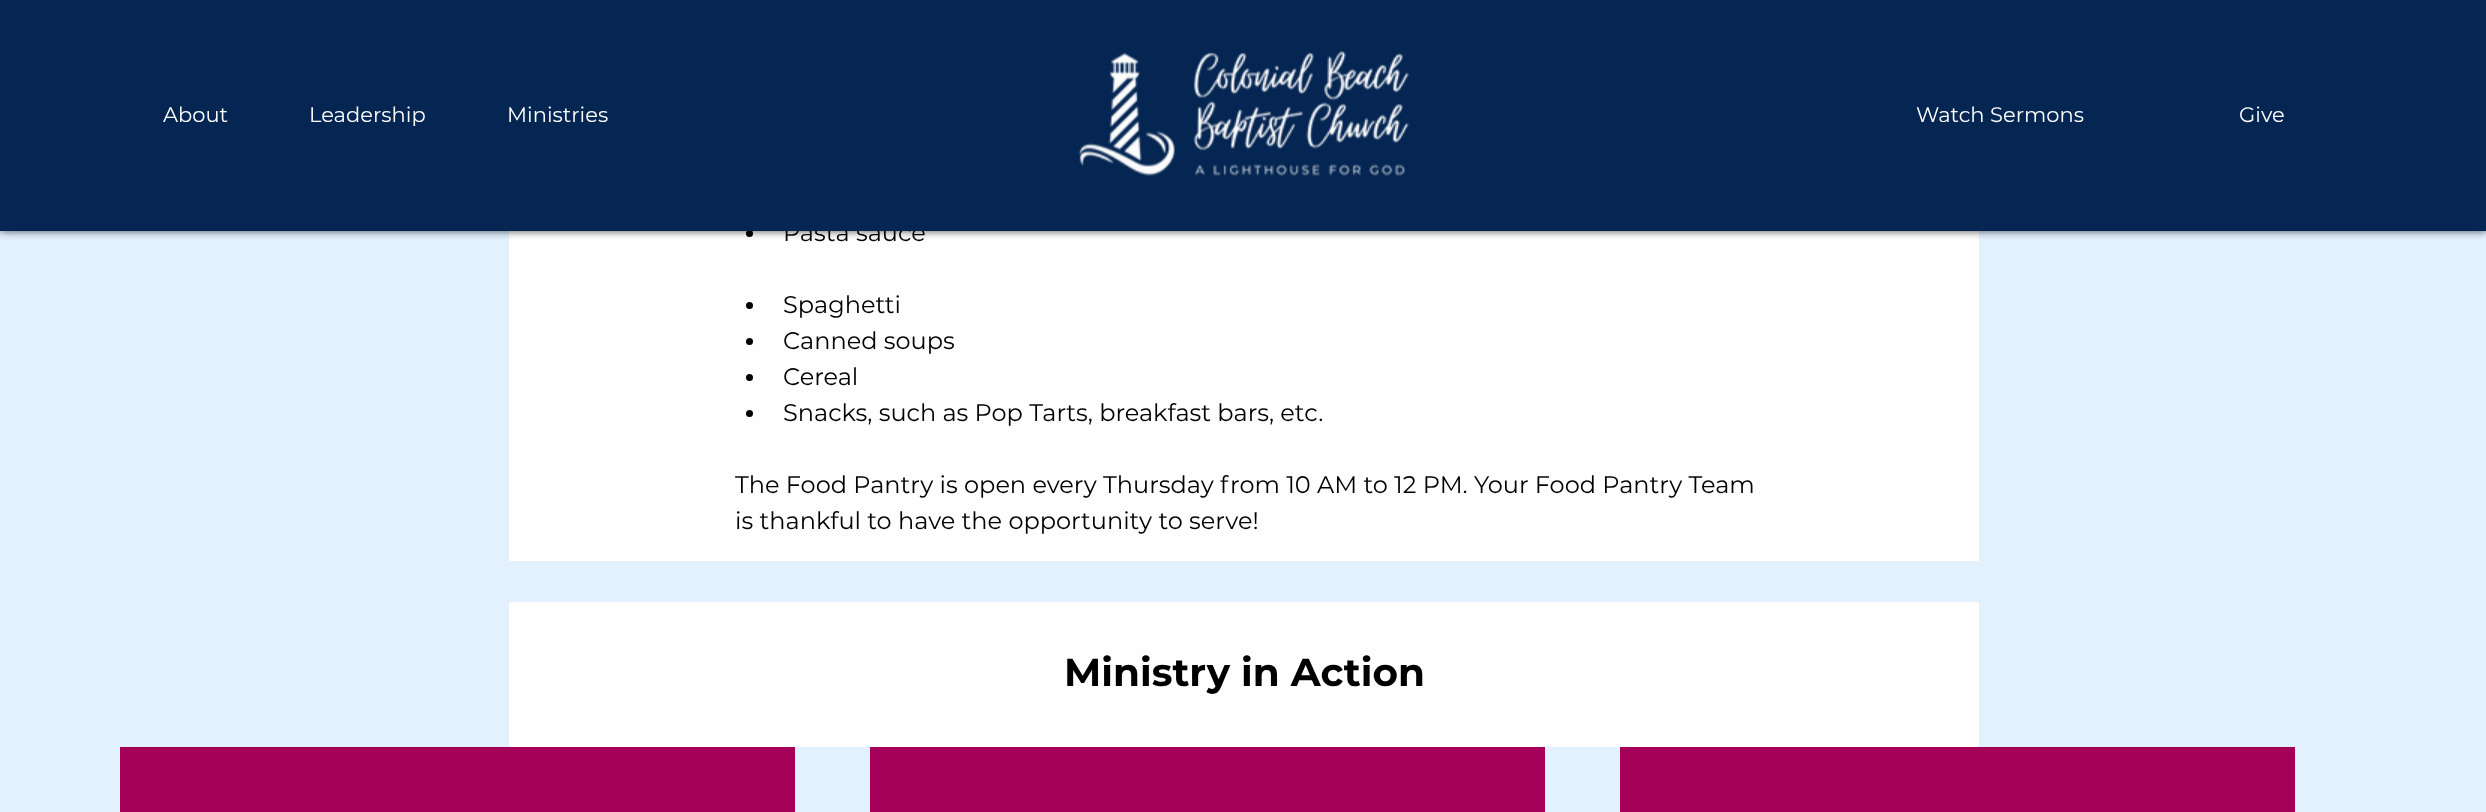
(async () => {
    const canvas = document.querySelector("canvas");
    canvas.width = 2486;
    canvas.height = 812;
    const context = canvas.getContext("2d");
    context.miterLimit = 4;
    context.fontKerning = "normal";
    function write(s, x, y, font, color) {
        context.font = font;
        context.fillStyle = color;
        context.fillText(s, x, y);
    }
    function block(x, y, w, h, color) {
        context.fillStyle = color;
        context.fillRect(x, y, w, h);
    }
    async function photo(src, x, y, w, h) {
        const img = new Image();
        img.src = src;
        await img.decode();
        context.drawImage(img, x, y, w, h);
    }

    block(0, 0, 2486, 812, "rgb(227, 241, 255)");
    block(509, 231, 1470, 330, "rgb(254, 254, 254)");
    context.fillStyle = "rgb(0, 0, 0)";
    context.beginPath();
    context.arc(749.5, 233.5, 3.5, 0, Math.PI * 2);
    context.fill();
    context.fillStyle = "rgba(0, 0, 0, 0.7)";
    context.filter = "blur(4px)";
    context.beginPath();
    context.rect(0, 0, 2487, 231);
    context.fill();
    context.filter = "none";
    write("Pasta sauce", 783, 241, "24px Montserrat", "rgb(0, 0, 0)");
    block(0, 0, 2486, 231, "rgb(5, 38, 82)");
    write("About", 163, 122, "21px Montserrat", "rgb(254, 254, 254)");
    write("Leadership", 309, 122, "21px Montserrat", "rgb(254, 254, 254)");
    write("Ministries", 507, 122, "21px Montserrat", "rgb(254, 254, 254)");
    await photo("media/1.png", 1078, 51, 331, 125);
    write("Watch Sermons", 1916, 122, "21px Montserrat", "rgb(254, 254, 254)");
    write("Give", 2239, 122, "21px Montserrat", "rgb(254, 254, 254)");
    context.fillStyle = "rgb(0, 0, 0)";
    context.beginPath();
    context.arc(749.5, 305.5, 3.5, 0, Math.PI * 2);
    context.fill();
    write("Spaghetti", 783, 313, "24px Montserrat", "rgb(0, 0, 0)");
    context.beginPath();
    context.arc(749.5, 341.5, 3.5, 0, Math.PI * 2);
    context.fill();
    write("Canned soups", 783, 349, "24px Montserrat", "rgb(0, 0, 0)");
    context.beginPath();
    context.arc(749.5, 377.5, 3.5, 0, Math.PI * 2);
    context.fill();
    write("Cereal", 783, 385, "24px Montserrat", "rgb(0, 0, 0)");
    context.beginPath();
    context.arc(749.5, 413.5, 3.5, 0, Math.PI * 2);
    context.fill();
    write("Snacks, such as Pop Tarts, breakfast bars, etc.", 783, 421, "24px Montserrat", "rgb(0, 0, 0)");
    write("The Food Pantry is open every Thursday from 10 AM to 12 PM. Your Food Pantry Team", 735, 493, "24px Montserrat", "rgb(0, 0, 0)");
    write("is thankful to have the opportunity to serve!", 735, 529, "24px Montserrat", "rgb(0, 0, 0)");
    block(509, 602, 1470, 145, "rgb(254, 254, 254)");
    write("Ministry in Action", 1064, 686, "bold 39px Montserrat", "rgb(0, 0, 0)");
    block(120, 747, 675, 65, "rgb(165, 0, 88)");
    block(870, 747, 675, 65, "rgb(165, 0, 88)");
    block(1620, 747, 675, 65, "rgb(165, 0, 88)");
})();
